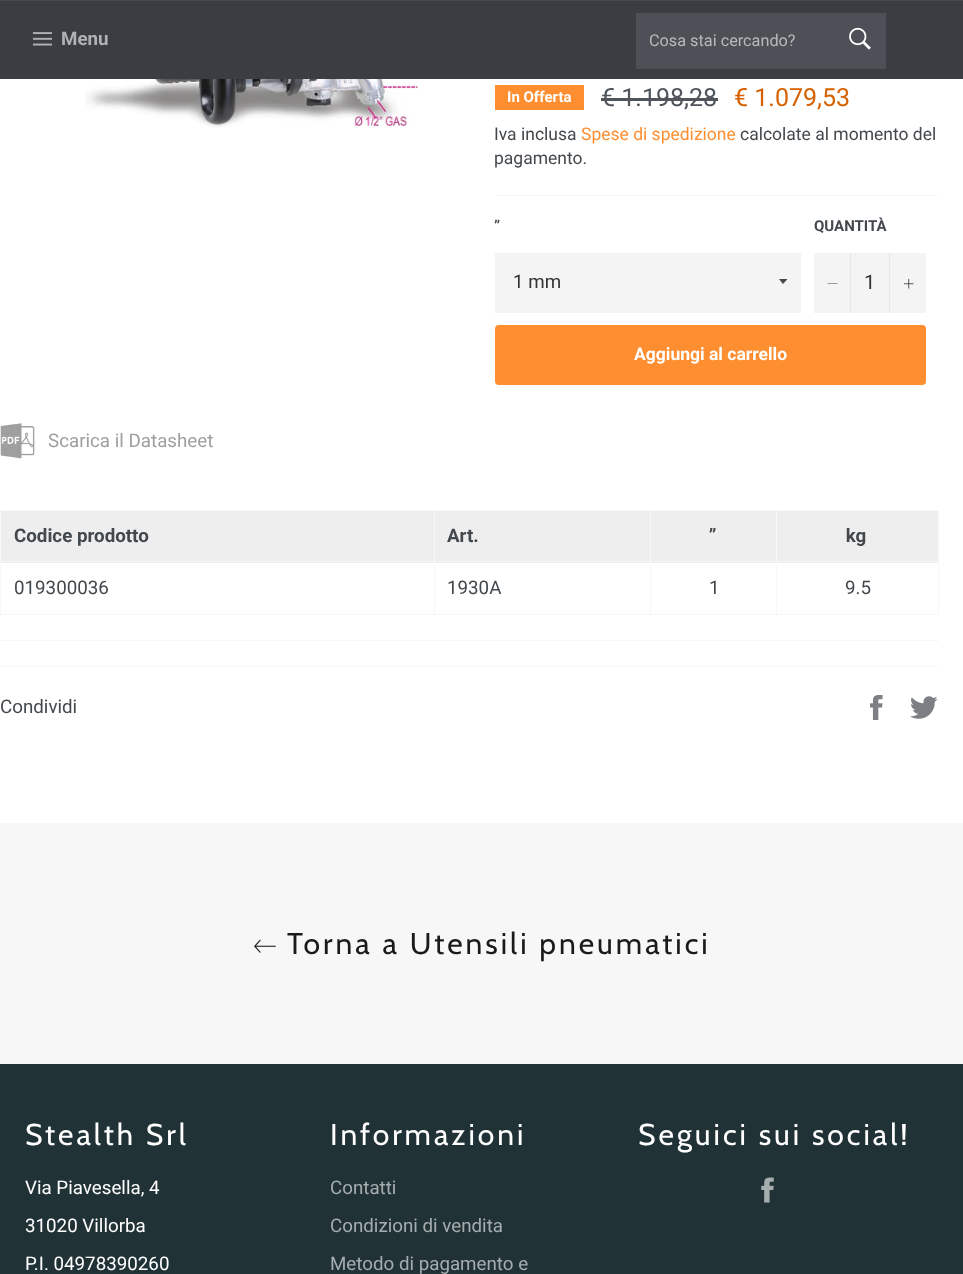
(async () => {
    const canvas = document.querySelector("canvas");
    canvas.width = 963;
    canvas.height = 1274;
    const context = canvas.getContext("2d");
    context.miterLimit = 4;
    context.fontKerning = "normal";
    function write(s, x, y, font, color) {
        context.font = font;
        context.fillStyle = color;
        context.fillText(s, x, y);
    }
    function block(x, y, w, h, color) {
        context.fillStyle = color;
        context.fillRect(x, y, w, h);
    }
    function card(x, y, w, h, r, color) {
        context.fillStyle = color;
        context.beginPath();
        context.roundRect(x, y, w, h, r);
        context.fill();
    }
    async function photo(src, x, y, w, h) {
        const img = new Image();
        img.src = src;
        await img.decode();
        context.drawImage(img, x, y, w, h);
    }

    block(0, 0, 963, 1274, "rgb(255, 255, 255)");
    block(0, 1, 963, 78, "rgb(58, 61, 65)");
    block(0, 0, 963, 1, "rgb(70, 74, 78)");
    await photo("media/1.png", 32, 32, 21, 14);
    write("Menu", 61, 45, "bold 18.75px Roboto", "rgb(176, 177, 179)");
    block(636, 13, 250, 56, "rgb(77, 81, 87)");
    write("Cosa stai cercando?", 649, 46, "16.25px Roboto", "rgb(184, 185, 188)");
    await photo("media/2.png", 849, 27, 22, 23);
    await photo("media/3.png", 85, 79, 334, 49);
    block(495, 85, 89, 25, "rgb(255, 142, 49)");
    write("In Offerta", 507, 102, "bold 15px Roboto", "rgb(255, 255, 255)");
    write("€ 1.198,28", 601, 106, "25px Roboto", "rgb(79, 85, 91)");
    block(601, 98, 117, 3, "rgb(79, 85, 91)");
    write("€ 1.079,53", 734, 106, "25px Roboto", "rgb(214, 97, 0)");
    write("Iva inclusa", 494, 140, "17.5px Roboto", "rgb(67, 72, 77)");
    write("Spese di spedizione", 581, 140, "17.5px Roboto", "rgb(255, 142, 49)");
    write("calcolate al momento del", 740, 140, "17.5px Roboto", "rgb(67, 72, 77)");
    write("pagamento.", 494, 164, "17.5px Roboto", "rgb(67, 72, 77)");
    block(495, 195, 444, 1, "rgb(247, 247, 247)");
    write("”", 494, 231, "bold 15px Roboto", "rgb(67, 72, 77)");
    block(495, 253, 306, 60, "rgb(244, 244, 244)");
    context.fillStyle = "rgb(67, 72, 77)";
    context.beginPath();
    context.moveTo(779, 279);
    context.lineTo(783, 284);
    context.lineTo(787.5, 279);
    context.closePath();
    context.fill();
    write("1 mm", 513, 288, "18.75px Roboto", "rgb(51, 51, 51)");
    write("QUANTITÀ", 814, 231, "bold 15px Roboto", "rgb(67, 72, 77)");
    block(814, 253, 112, 60, "rgb(244, 244, 244)");
    block(850, 253, 1, 60, "rgb(231, 231, 231)");
    context.fillStyle = "rgb(67, 72, 77)";
    context.beginPath();
    context.moveTo(837.5, 283.5);
    context.lineTo(837.5, 284);
    context.lineTo(827.5, 284);
    context.lineTo(827.5, 283.5);
    context.closePath();
    context.fill("evenodd");
    write("1", 864, 289, "20px Roboto", "rgb(51, 51, 51)");
    block(889, 253, 1, 60, "rgb(231, 231, 231)");
    await photo("media/4.png", 904, 279, 10, 10);
    card(495, 325, 431, 60, 4, "rgb(255, 142, 49)");
    write("Aggiungi al carrello", 634, 360, "bold 17.5px Roboto", "rgb(255, 255, 255)");
    await photo("media/5.png", 0, 423, 35, 36);
    write("Scarica il Datasheet", 48, 447, "18.75px Roboto", "rgb(159, 159, 159)");
    block(1, 511, 433, 52, "rgb(238, 238, 238)");
    block(776, 510, 163, 1, "rgb(247, 247, 247)");
    block(651, 511, 287, 52, "rgb(238, 238, 238)");
    block(776, 561, 163, 1, "rgb(247, 247, 247)");
    block(938, 561, 1, 54, "rgb(247, 247, 247)");
    block(776, 614, 163, 1, "rgb(247, 247, 247)");
    block(776, 561, 1, 54, "rgb(247, 247, 247)");
    block(650, 561, 128, 1, "rgb(247, 247, 247)");
    block(776, 510, 1, 53, "rgb(247, 247, 247)");
    block(650, 510, 128, 1, "rgb(247, 247, 247)");
    block(435, 511, 215, 52, "rgb(238, 238, 238)");
    block(650, 614, 128, 1, "rgb(247, 247, 247)");
    block(650, 561, 1, 54, "rgb(247, 247, 247)");
    block(434, 561, 217, 1, "rgb(247, 247, 247)");
    block(650, 510, 1, 53, "rgb(247, 247, 247)");
    block(434, 510, 217, 1, "rgb(247, 247, 247)");
    block(434, 614, 217, 1, "rgb(247, 247, 247)");
    block(434, 561, 1, 54, "rgb(247, 247, 247)");
    block(0, 561, 435, 1, "rgb(247, 247, 247)");
    block(434, 510, 1, 53, "rgb(247, 247, 247)");
    block(0, 510, 435, 1, "rgb(247, 247, 247)");
    block(0, 614, 435, 1, "rgb(247, 247, 247)");
    block(0, 561, 1, 54, "rgb(247, 247, 247)");
    block(0, 510, 1, 53, "rgb(247, 247, 247)");
    write("Codice prodotto", 14, 542, "bold 18.75px Roboto", "rgb(67, 72, 77)");
    write("Art.", 447, 542, "bold 18.75px Roboto", "rgb(67, 72, 77)");
    write(" ”", 704, 542, "bold 18.75px Roboto", "rgb(67, 72, 77)");
    block(938, 510, 1, 53, "rgb(247, 247, 247)");
    write(" kg", 841, 542, "bold 18.75px Roboto", "rgb(67, 72, 77)");
    write("019300036", 14, 594, "18.75px Roboto", "rgb(67, 72, 77)");
    write("1930A", 447, 594, "18.75px Roboto", "rgb(67, 72, 77)");
    write("1", 709, 594, "18.75px Roboto", "rgb(67, 72, 77)");
    write("9.5", 845, 594, "18.75px Roboto", "rgb(67, 72, 77)");
    block(0, 640, 939, 1, "rgb(247, 247, 247)");
    block(0, 666, 939, 1, "rgb(247, 247, 247)");
    write("Condividi", 0, 713, "18.75px Roboto", "rgb(67, 72, 77)");
    await photo("media/6.png", 870, 695, 13, 25);
    await photo("media/7.png", 910, 696, 28, 23);
    block(0, 823, 963, 241, "rgb(247, 247, 247)");
    await photo("media/8.png", 254, 939, 22, 14);
    context.letterSpacing = "3px";
    write("Torna a Utensili pneumatici", 287, 954, "30px Cabin", "rgb(26, 26, 26)");
    block(0, 1064, 963, 210, "rgb(33, 50, 54)");
    write("Stealth Srl", 25, 1145, "30px Cabin", "rgb(255, 255, 255)");
    context.letterSpacing = "0px";
    write("Via Piavesella, 4", 25, 1194, "18.75px Roboto", "rgb(255, 255, 255)");
    write("31020 Villorba", 25, 1232, "18.75px Roboto", "rgb(255, 255, 255)");
    write("P.I. 04978390260", 25, 1270, "18.75px Roboto", "rgb(255, 255, 255)");
    context.letterSpacing = "3px";
    write("Informazioni", 330, 1145, "30px Cabin", "rgb(255, 255, 255)");
    context.letterSpacing = "0px";
    write("Contatti", 330, 1194, "18.75px Roboto", "rgb(166, 173, 175)");
    write("Condizioni di vendita", 330, 1232, "18.75px Roboto", "rgb(166, 173, 175)");
    write("Metodo di pagamento e", 330, 1270, "18.75px Roboto", "rgb(166, 173, 175)");
    context.letterSpacing = "3px";
    write("Seguici sui social!", 638, 1145, "30px Cabin", "rgb(255, 255, 255)");
    await photo("media/9.png", 761, 1177, 13, 26);
})();
